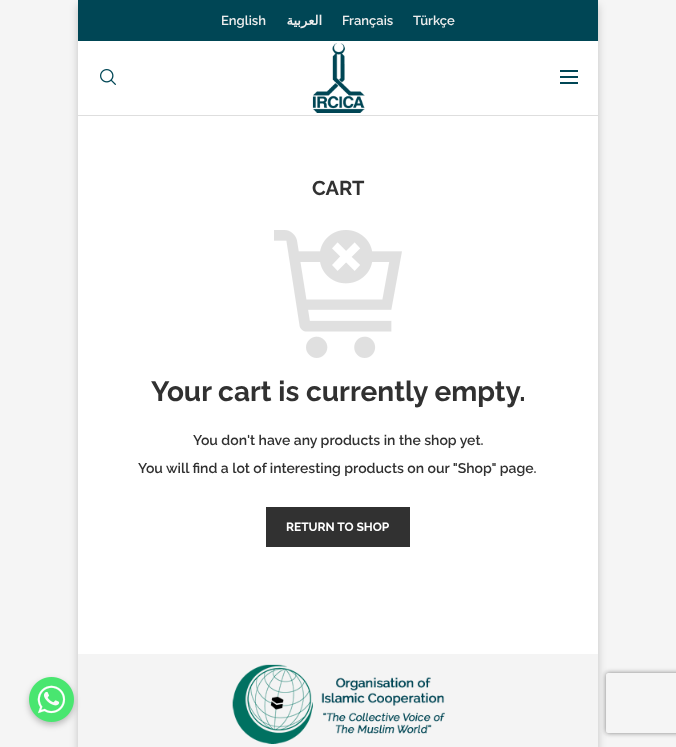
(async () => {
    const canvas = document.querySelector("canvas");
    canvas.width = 676;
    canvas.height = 747;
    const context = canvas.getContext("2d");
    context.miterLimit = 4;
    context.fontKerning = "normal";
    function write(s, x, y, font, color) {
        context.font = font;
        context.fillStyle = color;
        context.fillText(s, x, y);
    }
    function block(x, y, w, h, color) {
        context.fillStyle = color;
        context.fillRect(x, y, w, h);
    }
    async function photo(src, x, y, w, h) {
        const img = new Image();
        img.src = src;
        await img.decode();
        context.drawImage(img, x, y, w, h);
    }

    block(0, 0, 676, 747, "rgb(245, 245, 245)");
    context.fillStyle = "rgba(0, 0, 0, 0.2)";
    context.filter = "blur(4px)";
    context.beginPath();
    context.rect(78, 5, 520, 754);
    context.fill();
    context.filter = "none";
    block(78, 41, 520, 613, "rgb(255, 255, 255)");
    block(78, 0, 520, 41, "rgb(0, 70, 85)");
    write("English", 221, 25, "600 13px Raleway", "rgb(238, 238, 238)");
    context.direction = "rtl";
    write("العربية", 322, 25, "bold 13px DejaVu Sans", "rgb(238, 238, 238)");
    context.direction = "ltr";
    write("Français", 342, 25, "600 13px Raleway", "rgb(238, 238, 238)");
    write("Türkçe", 413, 25, "600 13px Raleway", "rgb(238, 238, 238)");
    block(78, 115, 520, 1, "rgb(222, 222, 222)");
    await photo("media/1.png", 100, 69, 16, 16);
    await photo("media/2.png", 312, 43, 53, 70);
    block(560, 70, 18, 2, "rgb(0, 70, 85)");
    block(560, 76, 18, 2, "rgb(0, 70, 85)");
    block(560, 82, 18, 2, "rgb(0, 70, 85)");
    write("CART", 312, 195, "bold 20px Raleway", "rgb(49, 49, 49)");
    await photo("media/3.png", 274, 230, 128, 128);
    write("Your cart is currently empty.", 151, 401, "bold 28px Raleway", "rgb(49, 49, 49)");
    write("You don't have any products in the shop yet.", 193, 445, "600 14px Raleway", "rgb(49, 49, 49)");
    write("You will find a lot of interesting products on our \"Shop\" page.", 138, 473, "600 14px Raleway", "rgb(49, 49, 49)");
    block(266, 507, 144, 40, "rgb(49, 49, 49)");
    write("RETURN TO SHOP", 286, 531, "bold 12px Raleway", "rgb(255, 255, 255)");
    block(78, 654, 520, 93, "rgb(244, 244, 244)");
    await photo("media/4.png", 232, 664, 213, 80);
    context.fillStyle = "rgba(0, 0, 0, 0.25)";
    context.filter = "blur(3px)";
    context.beginPath();
    context.roundRect(29, 680, 45, 45, 22.5);
    context.fill();
    context.filter = "none";
    await photo("media/5.png", 29, 677, 45, 45);
    context.save();
    context.beginPath();
    context.moveTo(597, 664);
    context.lineTo(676, 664);
    context.lineTo(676, 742);
    context.lineTo(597, 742);
    context.closePath();
    context.moveTo(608, 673);
    context.lineTo(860, 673);
    context.bezierCurveTo(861, 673, 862, 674, 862, 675);
    context.lineTo(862, 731);
    context.bezierCurveTo(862, 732, 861, 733, 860, 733);
    context.lineTo(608, 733);
    context.bezierCurveTo(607, 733, 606, 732, 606, 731);
    context.lineTo(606, 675);
    context.bezierCurveTo(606, 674, 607, 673, 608, 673);
    context.closePath();
    context.clip("evenodd");
    context.fillStyle = "rgb(128, 128, 128)";
    context.filter = "blur(2.5px)";
    context.beginPath();
    context.roundRect(606, 673, 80, 60, 2);
    context.fill();
    context.filter = "none";
    context.restore();
})();
